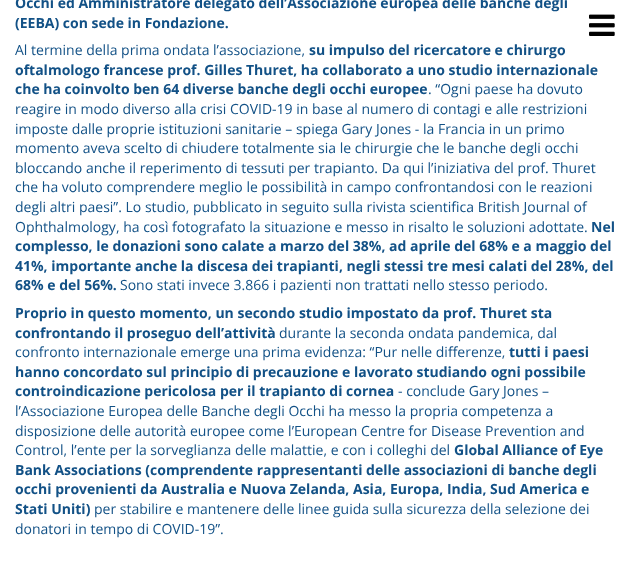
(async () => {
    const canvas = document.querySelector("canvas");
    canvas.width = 637;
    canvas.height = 585;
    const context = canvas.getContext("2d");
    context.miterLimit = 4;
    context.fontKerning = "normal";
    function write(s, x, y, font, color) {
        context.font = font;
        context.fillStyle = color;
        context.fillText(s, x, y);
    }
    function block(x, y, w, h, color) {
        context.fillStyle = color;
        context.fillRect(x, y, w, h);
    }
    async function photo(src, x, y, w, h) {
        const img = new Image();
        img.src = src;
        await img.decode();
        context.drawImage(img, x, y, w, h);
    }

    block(0, 0, 637, 585, "rgb(255, 255, 255)");
    write("Occhi ed Amministratore delegato dell’Associazione europea delle banche degli", 15, 8, "bold 14px Open Sans", "rgb(18, 81, 134)");
    write("(EEBA) con sede in Fondazione.", 15, 28, "bold 14px Open Sans", "rgb(18, 81, 134)");
    write("Al termine della prima ondata l’associazione,", 15, 55, "14px Open Sans", "rgb(18, 81, 134)");
    write("su impulso del ricercatore e chirurgo", 309, 55, "bold 14px Open Sans", "rgb(18, 81, 134)");
    write("oftalmologo francese prof. Gilles Thuret, ha collaborato a uno studio internazionale", 15, 75, "bold 14px Open Sans", "rgb(18, 81, 134)");
    write("che ha coinvolto ben 64 diverse banche degli occhi europee", 15, 94, "bold 14px Open Sans", "rgb(18, 81, 134)");
    write(". “Ogni paese ha dovuto", 428, 94, "14px Open Sans", "rgb(18, 81, 134)");
    write("reagire in modo diverso alla crisi COVID-19 in base al numero di contagi e alle restrizioni", 15, 114, "14px Open Sans", "rgb(18, 81, 134)");
    write("imposte dalle proprie istituzioni sanitarie – spiega Gary Jones - la Francia in un primo", 15, 134, "14px Open Sans", "rgb(18, 81, 134)");
    write("momento aveva scelto di chiudere totalmente sia le chirurgie che le banche degli occhi", 15, 153, "14px Open Sans", "rgb(18, 81, 134)");
    write("bloccando anche il reperimento di tessuti per trapianto. Da qui l’iniziativa del prof. Thuret", 15, 173, "14px Open Sans", "rgb(18, 81, 134)");
    write("che ha voluto comprendere meglio le possibilità in campo confrontandosi con le reazioni", 15, 192, "14px Open Sans", "rgb(18, 81, 134)");
    write("degli altri paesi”. Lo studio, pubblicato in seguito sulla rivista scientifica British Journal of", 15, 212, "14px Open Sans", "rgb(18, 81, 134)");
    write("Ophthalmology, ha così fotografato la situazione e messo in risalto le soluzioni adottate.", 15, 232, "14px Open Sans", "rgb(18, 81, 134)");
    write("Nel", 591, 232, "bold 14px Open Sans", "rgb(18, 81, 134)");
    write("complesso, le donazioni sono calate a marzo del 38%, ad aprile del 68% e a maggio del", 15, 251, "bold 14px Open Sans", "rgb(18, 81, 134)");
    write("41%, importante anche la discesa dei trapianti, negli stessi tre mesi calati del 28%, del", 15, 271, "bold 14px Open Sans", "rgb(18, 81, 134)");
    write("68% e del 56%.", 15, 290, "bold 14px Open Sans", "rgb(18, 81, 134)");
    write("Sono stati invece 3.866 i pazienti non trattati nello stesso periodo.", 120, 290, "14px Open Sans", "rgb(18, 81, 134)");
    write("Proprio in questo momento, un secondo studio impostato da prof. Thuret sta", 15, 318, "bold 14px Open Sans", "rgb(18, 81, 134)");
    write("confrontando il proseguo dell’attività", 15, 338, "bold 14px Open Sans", "rgb(18, 81, 134)");
    write("durante la seconda ondata pandemica, dal", 279, 338, "14px Open Sans", "rgb(18, 81, 134)");
    write("confronto internazionale emerge una prima evidenza: “Pur nelle differenze,", 15, 357, "14px Open Sans", "rgb(18, 81, 134)");
    write("tutti i paesi", 509, 357, "bold 14px Open Sans", "rgb(18, 81, 134)");
    write("hanno concordato sul principio di precauzione e lavorato studiando ogni possibile", 15, 377, "bold 14px Open Sans", "rgb(18, 81, 134)");
    write("controindicazione pericolosa per il trapianto di cornea", 15, 396, "bold 14px Open Sans", "rgb(18, 81, 134)");
    write("- conclude Gary Jones –", 398, 396, "14px Open Sans", "rgb(18, 81, 134)");
    write("l’Associazione Europea delle Banche degli Occhi ha messo la propria competenza a", 15, 416, "14px Open Sans", "rgb(18, 81, 134)");
    write("disposizione delle autorità europee come l’European Centre for Disease Prevention and", 15, 436, "14px Open Sans", "rgb(18, 81, 134)");
    write("Control, l’ente per la sorveglianza delle malattie, e con i colleghi del", 15, 455, "14px Open Sans", "rgb(18, 81, 134)");
    write("Global Alliance of Eye", 454, 455, "bold 14px Open Sans", "rgb(18, 81, 134)");
    write("Bank Associations (comprendente rappresentanti delle associazioni di banche degli", 15, 475, "bold 14px Open Sans", "rgb(18, 81, 134)");
    write("occhi provenienti da Australia e Nuova Zelanda, Asia, Europa, India, Sud America e", 15, 494, "bold 14px Open Sans", "rgb(18, 81, 134)");
    write("Stati Uniti)", 15, 514, "bold 14px Open Sans", "rgb(18, 81, 134)");
    write("per stabilire e mantenere delle linee guida sulla sicurezza della selezione dei", 94, 514, "14px Open Sans", "rgb(18, 81, 134)");
    write("donatori in tempo di COVID-19”.", 15, 534, "14px Open Sans", "rgb(18, 81, 134)");
    await photo("media/1.png", 589, 14, 26, 22);
})();
